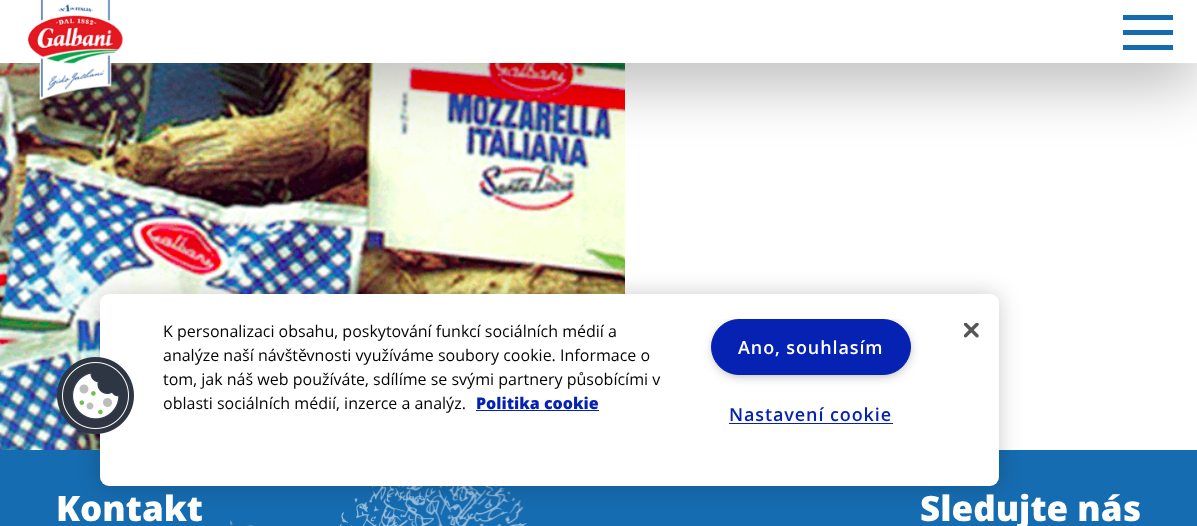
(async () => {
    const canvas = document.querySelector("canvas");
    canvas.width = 1197;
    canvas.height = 526;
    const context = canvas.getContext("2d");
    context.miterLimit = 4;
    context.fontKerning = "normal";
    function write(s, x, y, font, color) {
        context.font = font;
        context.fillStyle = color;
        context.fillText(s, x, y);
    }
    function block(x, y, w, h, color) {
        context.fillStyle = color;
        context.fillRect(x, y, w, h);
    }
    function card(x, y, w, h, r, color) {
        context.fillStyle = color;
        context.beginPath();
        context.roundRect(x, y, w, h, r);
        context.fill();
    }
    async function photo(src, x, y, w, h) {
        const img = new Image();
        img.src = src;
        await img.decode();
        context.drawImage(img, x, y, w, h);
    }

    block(0, 0, 1197, 526, "rgb(255, 255, 255)");
    await photo("media/4.png", 0, 63, 625, 387);
    block(0, 450, 1197, 76, "rgb(22, 108, 176)");
    await photo("media/5.png", 230, 486, 297, 40);
    context.fillStyle = "rgba(0, 0, 0, 0.2)";
    context.filter = "blur(11px)";
    context.beginPath();
    context.roundRect(100, 294, 899, 192, 9);
    context.fill();
    context.filter = "none";
    card(100, 294, 899, 192, 9, "rgb(255, 255, 255)");
    await photo("media/1.png", 57, 357, 77, 77);
    write("K personalizaci obsahu, poskytování funkcí sociálních médií a", 163, 337, "16px Open Sans", "rgb(3, 3, 3)");
    write("analýze naší návštěvnosti využíváme soubory cookie. Informace o", 163, 361, "16px Open Sans", "rgb(3, 3, 3)");
    write("tom, jak náš web používáte, sdílíme se svými partnery působícími v", 163, 385, "16px Open Sans", "rgb(3, 3, 3)");
    write("oblasti sociálních médií, inzerce a analýz.", 163, 409, "16px Open Sans", "rgb(3, 3, 3)");
    write("Politika cookie", 476, 409, "800 16px Open Sans", "rgb(5, 34, 179)");
    block(476, 410, 123, 1, "rgb(5, 34, 179)");
    context.save();
    context.beginPath();
    context.rect(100, 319, 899, 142);
    context.clip();
    context.fillStyle = "rgb(153, 153, 153)";
    context.filter = "blur(6px)";
    context.beginPath();
    context.roundRect(715, 325, 193, 49, 24.5);
    context.fill();
    context.filter = "none";
    context.restore();
    context.beginPath();
    context.roundRect(711.5, 319.5, 199, 55, 27.5);
    context.fill();
    context.strokeStyle = "rgb(5, 34, 179)";
    context.stroke();
    context.letterSpacing = "0.9px";
    write("Ano, souhlasím", 738, 354, "600 18px Open Sans", "rgb(255, 255, 255)");
    write("Nastavení cookie", 729, 421, "600 18px Open Sans", "rgb(5, 34, 179)");
    block(729, 423, 164, 1, "rgb(5, 34, 179)");
    await photo("media/2.png", 964, 323, 15, 15);
    context.fillStyle = "rgba(0, 0, 0, 0.3)";
    context.filter = "blur(31px)";
    context.beginPath();
    context.rect(0, 19, 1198, 62);
    context.fill();
    context.filter = "none";
    block(0, 0, 1197, 63, "rgb(255, 255, 255)");
    await photo("media/3.png", 27, 0, 96, 100);
    block(1123, 15, 50, 5, "rgb(22, 107, 175)");
    block(1123, 30, 50, 5, "rgb(22, 107, 175)");
    block(1123, 45, 50, 5, "rgb(22, 107, 175)");
    context.letterSpacing = "0px";
    write("Kontakt", 56, 521, "800 35px Open Sans", "rgb(255, 255, 255)");
    write("Sledujte nás", 920, 521, "800 35px Open Sans", "rgb(255, 255, 255)");
})();
